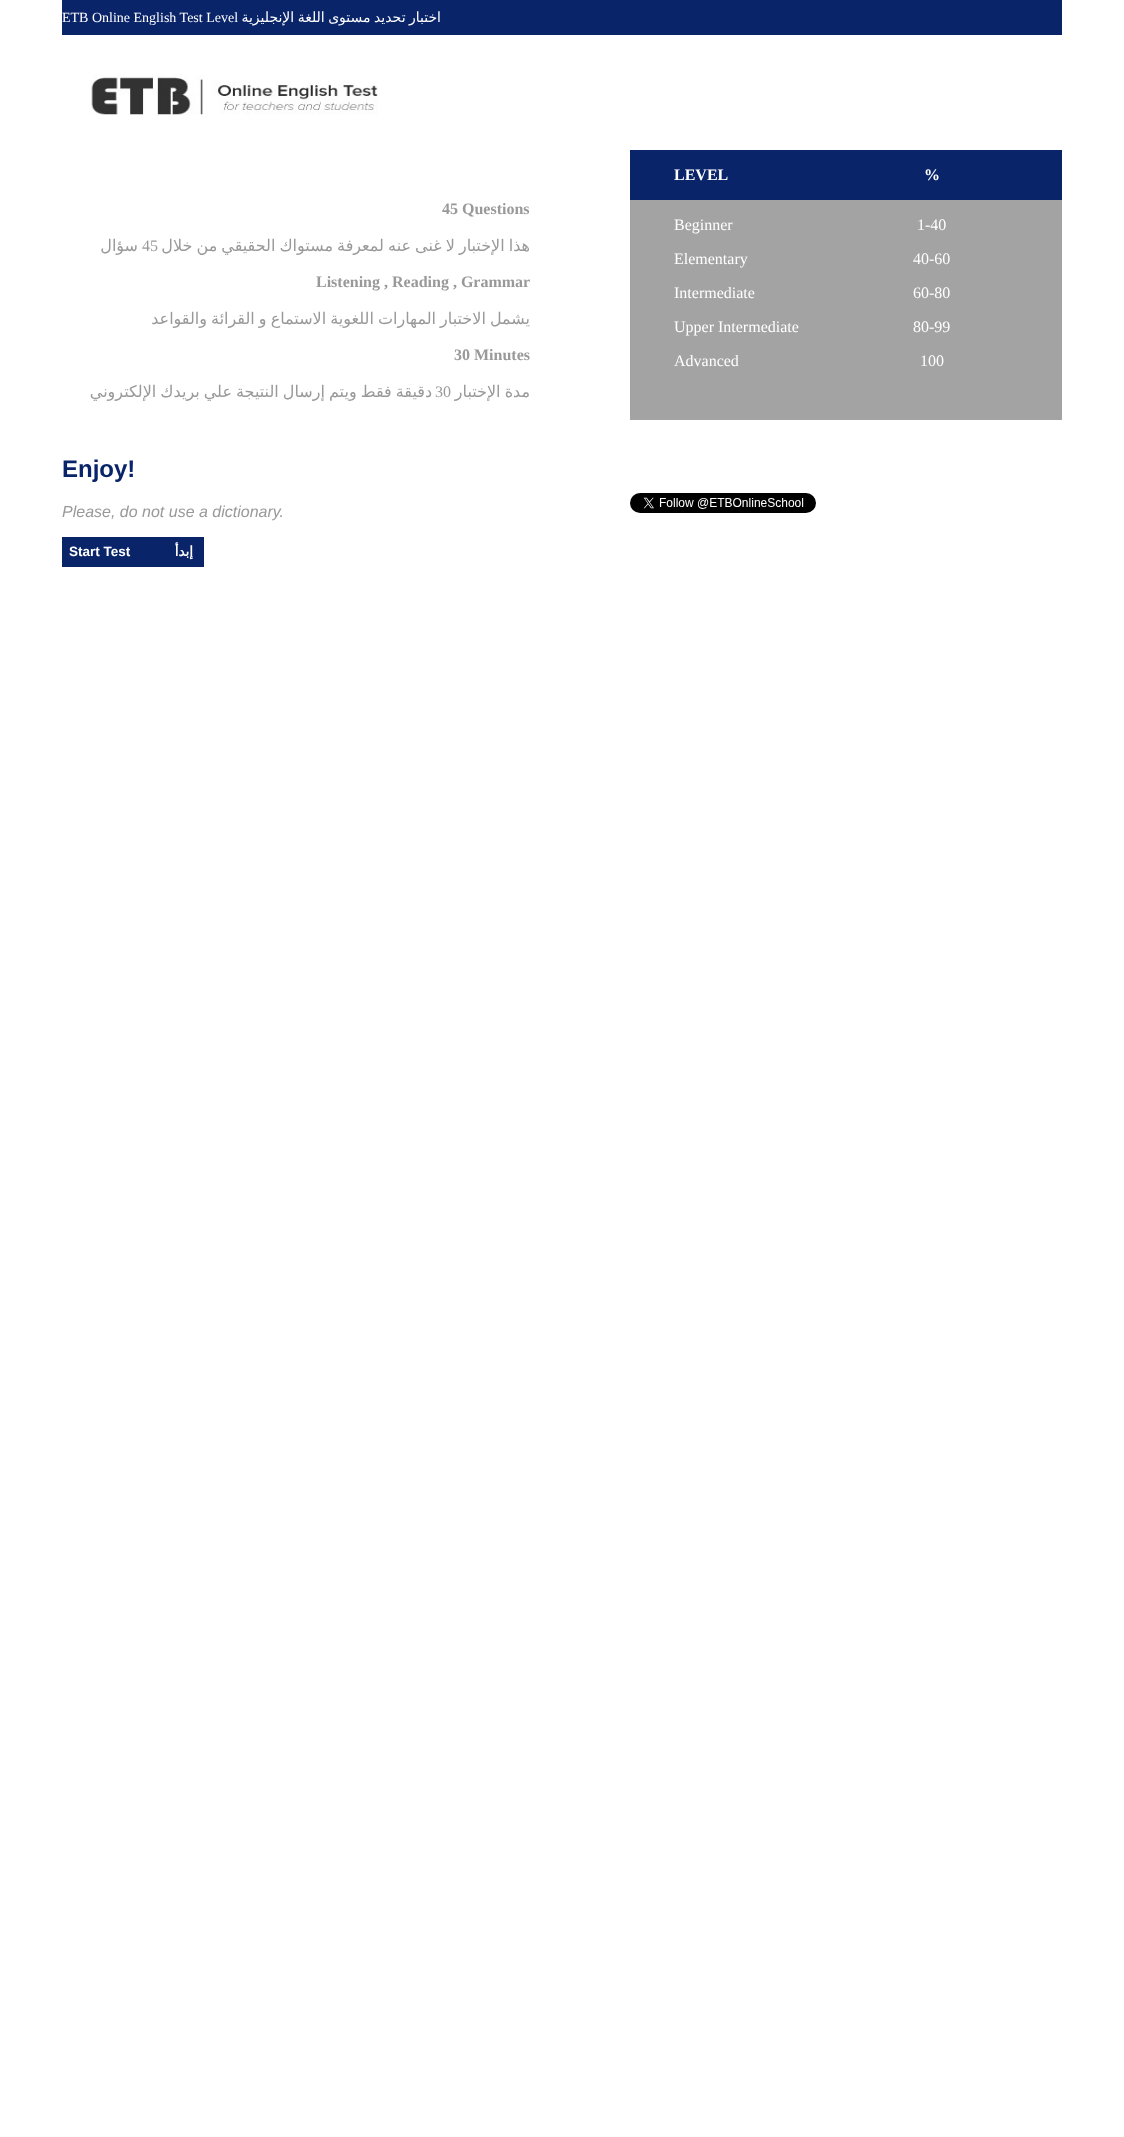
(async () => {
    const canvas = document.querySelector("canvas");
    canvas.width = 1124;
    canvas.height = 2137;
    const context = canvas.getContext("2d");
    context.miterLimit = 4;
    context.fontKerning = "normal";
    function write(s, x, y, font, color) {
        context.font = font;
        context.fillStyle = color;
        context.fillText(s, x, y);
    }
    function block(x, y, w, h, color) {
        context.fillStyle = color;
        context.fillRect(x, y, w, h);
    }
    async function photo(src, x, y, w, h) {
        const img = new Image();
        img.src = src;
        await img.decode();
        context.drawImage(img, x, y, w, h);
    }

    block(0, 0, 1124, 2137, "rgb(255, 255, 255)");
    block(62, 0, 1000, 35, "rgb(10, 36, 106)");
    write("ETB Online English Test Level", 62, 22, "14px Liberation Serif", "rgb(255, 255, 255)");
    context.wordSpacing = "-1px";
    context.direction = "rtl";
    write("اختبار تحديد مستوى اللغة الإنجليزية", 441, 22, "14px DejaVu Sans", "rgb(255, 255, 255)");
    await photo("media/1.png", 91, 74, 287, 41);
    context.wordSpacing = "0px";
    context.direction = "ltr";
    write("45 Questions", 442, 214, "bold 16px Liberation Serif", "rgb(153, 153, 153)");
    context.direction = "rtl";
    write("سؤال", 138, 251, "16px DejaVu Sans", "rgb(153, 153, 153)");
    context.direction = "ltr";
    write("45", 142, 251, "16px Liberation Serif", "rgb(153, 153, 153)");
    context.wordSpacing = "-1px";
    context.direction = "rtl";
    write("هذا الإختبار لا غنى عنه لمعرفة مستواك الحقيقي من خلال", 530, 251, "16px DejaVu Sans", "rgb(153, 153, 153)");
    context.wordSpacing = "0px";
    context.direction = "ltr";
    write("Listening , Reading , Grammar", 316, 287, "bold 16px Liberation Serif", "rgb(153, 153, 153)");
    context.wordSpacing = "-1px";
    context.direction = "rtl";
    write("يشمل الاختبار المهارات اللغوية الاستماع و القرائة والقواعد", 530, 324, "16px DejaVu Sans", "rgb(153, 153, 153)");
    context.wordSpacing = "0px";
    context.direction = "ltr";
    write("30 Minutes", 454, 360, "bold 16px Liberation Serif", "rgb(153, 153, 153)");
    context.wordSpacing = "-1px";
    context.direction = "rtl";
    write("دقيقة فقط ويتم إرسال النتيجة علي بريدك الإلكتروني", 432, 397, "16px DejaVu Sans", "rgb(153, 153, 153)");
    context.wordSpacing = "0px";
    context.direction = "ltr";
    write("30", 435, 397, "16px Liberation Serif", "rgb(153, 153, 153)");
    context.wordSpacing = "-1px";
    context.direction = "rtl";
    write("مدة الإختبار", 530, 397, "16px DejaVu Sans", "rgb(153, 153, 153)");
    context.wordSpacing = "0px";
    context.direction = "ltr";
    write("Enjoy!", 62, 477, "bold 24px Liberation Sans", "rgb(10, 36, 106)");
    write("Please, do not use a dictionary.", 62, 517, "italic 16px Liberation Sans", "rgb(153, 153, 153)");
    block(62, 537, 142, 30, "rgb(10, 36, 106)");
    write("Start Test", 69, 556, "bold 13.5px Liberation Sans", "rgb(255, 255, 255)");
    context.direction = "rtl";
    write("إبدأ", 193, 556, "bold 13.5px DejaVu Sans", "rgb(255, 255, 255)");
    block(630, 150, 432, 50, "rgb(10, 36, 106)");
    context.direction = "ltr";
    write("LEVEL", 674, 180, "bold 16px Liberation Serif", "rgb(255, 255, 255)");
    write("%", 924, 180, "bold 16px Liberation Serif", "rgb(255, 255, 255)");
    block(630, 200, 432, 220, "rgb(163, 163, 163)");
    write("Beginner", 674, 230, "16px Liberation Serif", "rgb(255, 255, 255)");
    write("Elementary", 674, 264, "16px Liberation Serif", "rgb(255, 255, 255)");
    write("Intermediate", 674, 298, "16px Liberation Serif", "rgb(255, 255, 255)");
    write("Upper Intermediate", 674, 332, "16px Liberation Serif", "rgb(255, 255, 255)");
    write("Advanced", 674, 366, "16px Liberation Serif", "rgb(255, 255, 255)");
    write("1-40", 917, 230, "16px Liberation Serif", "rgb(255, 255, 255)");
    write("40-60", 913, 264, "16px Liberation Serif", "rgb(255, 255, 255)");
    write("60-80", 913, 298, "16px Liberation Serif", "rgb(255, 255, 255)");
    write("80-99", 913, 332, "16px Liberation Serif", "rgb(255, 255, 255)");
    write("100", 920, 366, "16px Liberation Serif", "rgb(255, 255, 255)");
    await photo("media/2.png", 630, 493, 186, 20);
})();
